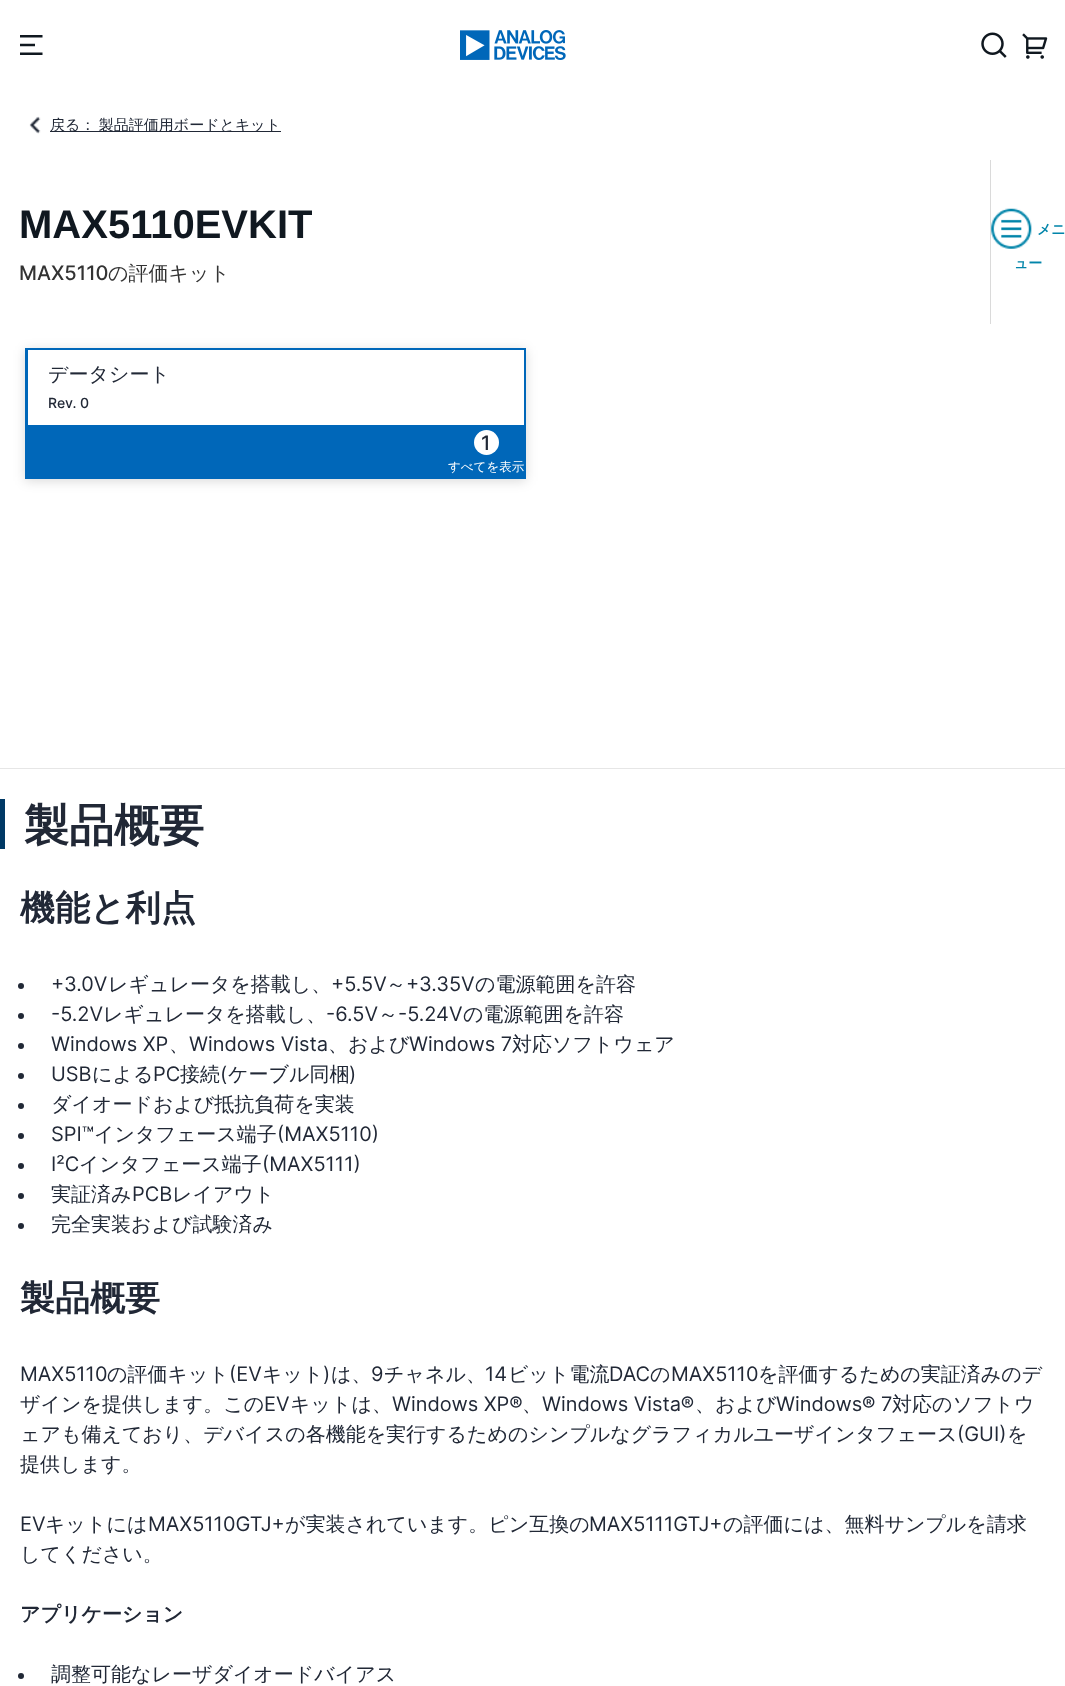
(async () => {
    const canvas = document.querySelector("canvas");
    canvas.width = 1065;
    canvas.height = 1686;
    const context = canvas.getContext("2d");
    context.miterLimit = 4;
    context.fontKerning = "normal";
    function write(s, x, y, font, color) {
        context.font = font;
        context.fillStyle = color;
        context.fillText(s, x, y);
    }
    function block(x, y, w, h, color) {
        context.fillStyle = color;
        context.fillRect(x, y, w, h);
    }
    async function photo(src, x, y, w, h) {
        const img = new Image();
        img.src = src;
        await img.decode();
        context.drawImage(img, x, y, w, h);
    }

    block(0, 0, 1065, 1686, "rgb(255, 255, 255)");
    await photo("media/1.png", 20, 35, 23, 20);
    await photo("media/2.png", 460, 30, 106, 30);
    await photo("media/3.png", 981, 32, 26, 26);
    await photo("media/4.png", 1022, 33, 26, 26);
    await photo("media/5.png", 29, 116, 12, 18);
    block(50, 131, 231, 1, "rgb(33, 40, 54)");
    context.wordSpacing = "-1px";
    write("戻る： 製品評価用ボードとキット", 50, 130, "500 15px WenQuanYi Zen Hei", "rgb(33, 40, 54)");
    context.wordSpacing = "0px";
    write("MAX5110EVKIT", 19, 238, "bold 40px Liberation Sans", "rgb(16, 24, 32)");
    write("MAX5110", 19, 280, "500 20px Inter", "rgb(51, 51, 51)");
    write("の評価キット", 108, 280, "500 20px WenQuanYi Zen Hei", "rgb(51, 51, 51)");
    block(990, 160, 1, 164, "rgb(218, 218, 218)");
    await photo("media/6.png", 991, 208, 41, 41);
    write("メニ", 1037, 234, "bold 14px WenQuanYi Zen Hei", "rgb(2, 133, 170)");
    write("ュー", 1014, 268, "bold 14px WenQuanYi Zen Hei", "rgb(2, 133, 170)");
    block(0, 768, 1065, 1, "rgb(230, 230, 230)");
    context.fillStyle = "rgba(0, 0, 0, 0.15)";
    context.filter = "blur(6px)";
    context.beginPath();
    context.rect(25, 350, 501, 131);
    context.fill();
    context.filter = "none";
    block(25, 348, 501, 131, "rgb(0, 103, 185)");
    block(28, 350, 496, 75, "rgb(255, 255, 255)");
    write("データシート", 48, 381, "500 20px WenQuanYi Zen Hei", "rgb(33, 40, 54)");
    write("Rev. 0", 48, 408, "500 14px Inter", "rgb(33, 40, 54)");
    context.fillStyle = "rgb(255, 255, 255)";
    context.beginPath();
    context.arc(486.5, 442.5, 12.5, 0, Math.PI * 2);
    context.fill();
    write("1", 481, 450, "500 20px Inter", "rgb(33, 40, 54)");
    write("すべてを表示", 448, 471, "500 12.5px WenQuanYi Zen Hei", "rgb(255, 255, 255)");
    block(0, 799, 5, 50, "rgb(0, 57, 101)");
    write("製品概要", 24, 841, "bold 45px WenQuanYi Zen Hei", "rgb(33, 40, 54)");
    write("機能と利点", 20, 920, "bold 35px WenQuanYi Zen Hei", "rgb(33, 40, 54)");
    context.beginPath();
    context.arc(21, 986, 3, 0, Math.PI * 2);
    context.fill();
    write("+3.0V", 51, 991, "20px Inter", "rgb(33, 40, 54)");
    write("レギュレータを搭載し、", 108, 991, "500 20px WenQuanYi Zen Hei", "rgb(33, 40, 54)");
    write("+5.5V", 331, 991, "20px Inter", "rgb(33, 40, 54)");
    write("～", 386, 991, "500 20px WenQuanYi Zen Hei", "rgb(33, 40, 54)");
    write("+3.35V", 406, 991, "20px Inter", "rgb(33, 40, 54)");
    write("の電源範囲を許容", 475, 991, "500 20px WenQuanYi Zen Hei", "rgb(33, 40, 54)");
    context.beginPath();
    context.arc(21, 1016, 3, 0, Math.PI * 2);
    context.fill();
    write("-5.2V", 51, 1021, "20px Inter", "rgb(33, 40, 54)");
    write("レギュレータを搭載し、", 103, 1021, "500 20px WenQuanYi Zen Hei", "rgb(33, 40, 54)");
    write("-6.5V", 326, 1021, "20px Inter", "rgb(33, 40, 54)");
    write("～", 378, 1021, "500 20px WenQuanYi Zen Hei", "rgb(33, 40, 54)");
    write("-5.24V", 398, 1021, "20px Inter", "rgb(33, 40, 54)");
    write("の電源範囲を許容", 463, 1021, "500 20px WenQuanYi Zen Hei", "rgb(33, 40, 54)");
    context.beginPath();
    context.arc(21, 1046, 3, 0, Math.PI * 2);
    context.fill();
    write("Windows XP", 51, 1051, "20px Inter", "rgb(33, 40, 54)");
    write("Windows Vista", 189, 1051, "20px Inter", "rgb(33, 40, 54)");
    write("、および", 328, 1051, "500 20px WenQuanYi Zen Hei", "rgb(33, 40, 54)");
    write("Windows 7", 409, 1051, "20px Inter", "rgb(33, 40, 54)");
    write("対応ソフトウェア", 512, 1051, "500 20px WenQuanYi Zen Hei", "rgb(33, 40, 54)");
    write("、", 169, 1051, "500 20px WenQuanYi Zen Hei", "rgb(33, 40, 54)");
    context.beginPath();
    context.arc(21, 1076, 3, 0, Math.PI * 2);
    context.fill();
    write("USB", 51, 1081, "20px Inter", "rgb(33, 40, 54)");
    write("による", 92, 1081, "500 20px WenQuanYi Zen Hei", "rgb(33, 40, 54)");
    write("PC", 153, 1081, "20px Inter", "rgb(33, 40, 54)");
    write("接続", 180, 1081, "500 20px WenQuanYi Zen Hei", "rgb(33, 40, 54)");
    write("(", 220, 1081, "20px Inter", "rgb(33, 40, 54)");
    write("ケーブル同梱", 228, 1081, "500 20px WenQuanYi Zen Hei", "rgb(33, 40, 54)");
    write(")", 349, 1081, "20px Inter", "rgb(33, 40, 54)");
    context.beginPath();
    context.arc(21, 1106, 3, 0, Math.PI * 2);
    context.fill();
    write("ダイオードおよび抵抗負荷を実装", 51, 1111, "500 20px WenQuanYi Zen Hei", "rgb(33, 40, 54)");
    context.beginPath();
    context.arc(21, 1136, 3, 0, Math.PI * 2);
    context.fill();
    write("SPI™", 51, 1141, "20px Inter", "rgb(33, 40, 54)");
    write("インタフェース端子", 94, 1141, "500 20px WenQuanYi Zen Hei", "rgb(33, 40, 54)");
    write("(MAX5110)", 277, 1141, "20px Inter", "rgb(33, 40, 54)");
    context.beginPath();
    context.arc(21, 1166, 3, 0, Math.PI * 2);
    context.fill();
    write("I²C", 51, 1171, "20px Inter", "rgb(33, 40, 54)");
    write("インタフェース端子", 79, 1171, "500 20px WenQuanYi Zen Hei", "rgb(33, 40, 54)");
    write("(MAX5111)", 262, 1171, "20px Inter", "rgb(33, 40, 54)");
    context.beginPath();
    context.arc(21, 1196, 3, 0, Math.PI * 2);
    context.fill();
    write("実証済み", 51, 1201, "500 20px WenQuanYi Zen Hei", "rgb(33, 40, 54)");
    write("PCB", 132, 1201, "20px Inter", "rgb(33, 40, 54)");
    write("レイアウト", 172, 1201, "500 20px WenQuanYi Zen Hei", "rgb(33, 40, 54)");
    context.beginPath();
    context.arc(21, 1226, 3, 0, Math.PI * 2);
    context.fill();
    write("完全実装および試験済み", 51, 1231, "500 20px WenQuanYi Zen Hei", "rgb(33, 40, 54)");
    write("製品概要", 20, 1310, "bold 35px WenQuanYi Zen Hei", "rgb(33, 40, 54)");
    write("MAX5110", 20, 1381, "20px Inter", "rgb(33, 40, 54)");
    write("の評価キット", 107, 1381, "500 20px WenQuanYi Zen Hei", "rgb(33, 40, 54)");
    write("(EV", 229, 1381, "20px Inter", "rgb(33, 40, 54)");
    write("キット", 262, 1381, "500 20px WenQuanYi Zen Hei", "rgb(33, 40, 54)");
    write(")", 323, 1381, "20px Inter", "rgb(33, 40, 54)");
    write("は、", 331, 1381, "500 20px WenQuanYi Zen Hei", "rgb(33, 40, 54)");
    write("9", 371, 1381, "20px Inter", "rgb(33, 40, 54)");
    write("チャネル、", 384, 1381, "500 20px WenQuanYi Zen Hei", "rgb(33, 40, 54)");
    write("14", 485, 1381, "20px Inter", "rgb(33, 40, 54)");
    write("ビット電流", 508, 1381, "500 20px WenQuanYi Zen Hei", "rgb(33, 40, 54)");
    write("DAC", 609, 1381, "20px Inter", "rgb(33, 40, 54)");
    write("の", 650, 1381, "500 20px WenQuanYi Zen Hei", "rgb(33, 40, 54)");
    write("MAX5110", 671, 1381, "20px Inter", "rgb(33, 40, 54)");
    write("を評価するための実証済みのデ", 758, 1381, "500 20px WenQuanYi Zen Hei", "rgb(33, 40, 54)");
    write("ザインを提供します。この", 20, 1411, "500 20px WenQuanYi Zen Hei", "rgb(33, 40, 54)");
    write("EV", 264, 1411, "20px Inter", "rgb(33, 40, 54)");
    write("キットは、", 290, 1411, "500 20px WenQuanYi Zen Hei", "rgb(33, 40, 54)");
    write("Windows XP®", 392, 1411, "20px Inter", "rgb(33, 40, 54)");
    write("、", 522, 1411, "500 20px WenQuanYi Zen Hei", "rgb(33, 40, 54)");
    write("Windows Vista®", 542, 1411, "20px Inter", "rgb(33, 40, 54)");
    write("、および", 695, 1411, "500 20px WenQuanYi Zen Hei", "rgb(33, 40, 54)");
    write("Windows® 7", 776, 1411, "20px Inter", "rgb(33, 40, 54)");
    write("対応のソフトウ", 892, 1411, "500 20px WenQuanYi Zen Hei", "rgb(33, 40, 54)");
    write("ェアも備えており、デバイスの各機能を実行するためのシンプルなグラフィカルユーザインタフェース", 20, 1441, "500 20px WenQuanYi Zen Hei", "rgb(33, 40, 54)");
    write("(GUI)", 957, 1441, "20px Inter", "rgb(33, 40, 54)");
    write("を", 1007, 1441, "500 20px WenQuanYi Zen Hei", "rgb(33, 40, 54)");
    write("提供します。", 20, 1471, "500 20px WenQuanYi Zen Hei", "rgb(33, 40, 54)");
    write("EV", 20, 1531, "20px Inter", "rgb(33, 40, 54)");
    write("キットには", 45, 1531, "500 20px WenQuanYi Zen Hei", "rgb(33, 40, 54)");
    write("MAX5110GTJ+", 148, 1531, "20px Inter", "rgb(33, 40, 54)");
    write("が実装されています。ピン互換の", 285, 1531, "500 20px WenQuanYi Zen Hei", "rgb(33, 40, 54)");
    write("MAX5111GTJ+", 589, 1531, "20px Inter", "rgb(33, 40, 54)");
    write("の評価には、無料サンプルを請求", 723, 1531, "500 20px WenQuanYi Zen Hei", "rgb(33, 40, 54)");
    write("してください。", 20, 1561, "500 20px WenQuanYi Zen Hei", "rgb(33, 40, 54)");
    write("アプリケーション", 20, 1621, "bold 20px WenQuanYi Zen Hei", "rgb(33, 40, 54)");
    context.beginPath();
    context.arc(21, 1676, 3, 0, Math.PI * 2);
    context.fill();
    write("調整可能なレーザダイオードバイアス", 51, 1681, "500 20px WenQuanYi Zen Hei", "rgb(33, 40, 54)");
})();
